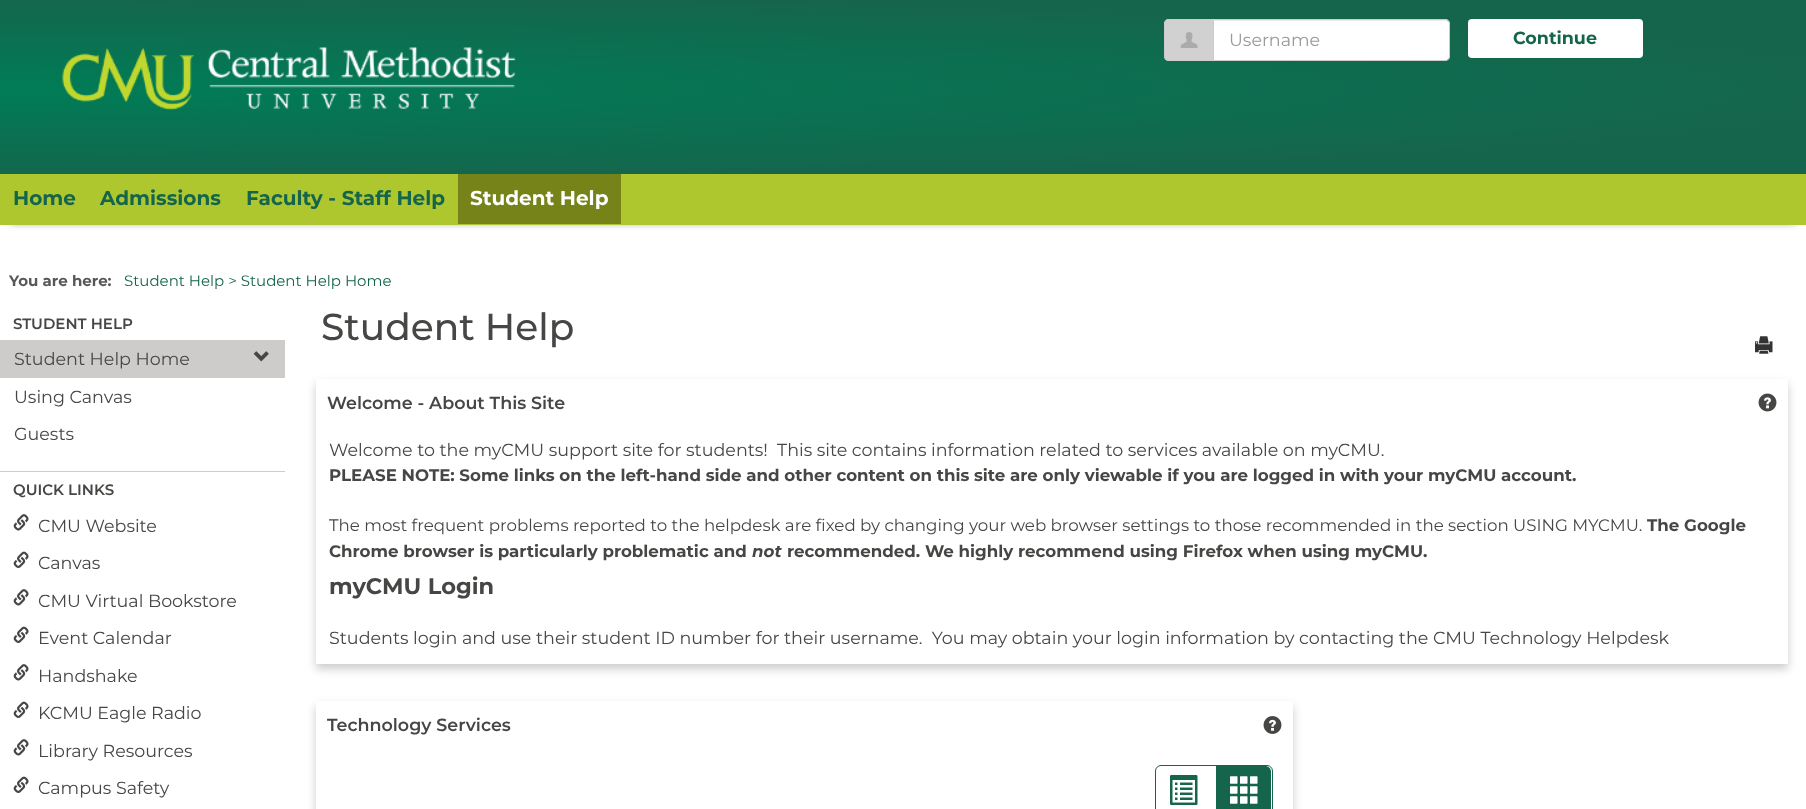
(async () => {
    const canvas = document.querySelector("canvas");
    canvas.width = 1806;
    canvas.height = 809;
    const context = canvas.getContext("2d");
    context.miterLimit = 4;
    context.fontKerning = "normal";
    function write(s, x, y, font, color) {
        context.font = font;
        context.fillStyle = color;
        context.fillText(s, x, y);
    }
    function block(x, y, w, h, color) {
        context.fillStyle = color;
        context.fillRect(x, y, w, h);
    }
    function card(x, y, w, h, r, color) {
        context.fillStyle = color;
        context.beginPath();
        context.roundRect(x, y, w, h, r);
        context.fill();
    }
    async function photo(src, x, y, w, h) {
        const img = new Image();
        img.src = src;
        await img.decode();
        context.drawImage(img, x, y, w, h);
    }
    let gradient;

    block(0, 0, 1806, 809, "rgb(255, 255, 255)");
    gradient = context.createRadialGradient(0, 1804.02, 0, 0, 1804.02, 2554);
    gradient.addColorStop(0, "rgb(0, 124, 86)");
    gradient.addColorStop(0.75, "rgb(21, 101, 76)");
    context.fillStyle = gradient;
    context.beginPath();
    context.rect(0, 0, 1806, 174);
    context.save();
    context.clip();
    context.scale(1, 126 / 2554);
    context.fillRect(0, 0, 1806, 16399);
    context.restore();
    context.fillStyle = "rgb(209, 209, 209)";
    context.beginPath();
    context.roundRect(1164, 19, 49, 42, [5, 0, 0, 5]);
    context.fill();
    context.fillStyle = "rgb(204, 204, 204)";
    context.beginPath();
    context.moveTo(1169, 19);
    context.lineTo(1212, 19);
    context.lineTo(1212, 61);
    context.lineTo(1169, 61);
    context.bezierCurveTo(1166, 61, 1164, 59, 1164, 56);
    context.lineTo(1164, 24);
    context.bezierCurveTo(1164, 21, 1166, 19, 1169, 19);
    context.closePath();
    context.moveTo(1169, 20);
    context.lineTo(1212, 20);
    context.lineTo(1212, 60);
    context.lineTo(1169, 60);
    context.bezierCurveTo(1167, 60, 1165, 58, 1165, 56);
    context.lineTo(1165, 24);
    context.bezierCurveTo(1165, 22, 1167, 20, 1169, 20);
    context.closePath();
    context.fill("evenodd");
    await photo("media/1.png", 1180, 32, 18, 16);
    context.fillStyle = "rgb(255, 255, 255)";
    context.beginPath();
    context.roundRect(1213, 19, 237, 42, [0, 5, 5, 0]);
    context.fill();
    context.fillStyle = "rgb(236, 236, 236)";
    context.beginPath();
    context.moveTo(1214, 21);
    context.lineTo(1445, 21);
    context.bezierCurveTo(1447, 21, 1449, 23, 1449, 25);
    context.bezierCurveTo(1449, 22, 1448, 20, 1445, 20);
    context.lineTo(1214, 20);
    context.closePath();
    context.fill();
    context.beginPath();
    context.roundRect(1213.5, 19.5, 236, 41, [0, 4.5, 4.5, 0]);
    context.strokeStyle = "rgb(204, 204, 204)";
    context.stroke();
    write("Username", 1229, 46, "17.5px Montserrat", "rgb(153, 153, 153)");
    card(1468, 19, 175, 39, 4, "rgb(255, 255, 255)");
    write("Continue", 1513, 44, "bold 17.5px Montserrat", "rgb(21, 101, 76)");
    await photo("media/2.png", 62, 47, 454, 63);
    context.fillStyle = "rgb(0, 0, 0)";
    context.filter = "blur(5px)";
    context.beginPath();
    context.rect(10, 189, 1786, 31);
    context.fill();
    context.filter = "none";
    block(0, 174, 1806, 51, "rgb(174, 199, 47)");
    write("Home", 13, 205, "bold 20px Montserrat", "rgb(21, 101, 76)");
    write("Admissions", 100, 205, "bold 20px Montserrat", "rgb(21, 101, 76)");
    write("Faculty - Staff Help", 246, 205, "bold 20px Montserrat", "rgb(21, 101, 76)");
    block(458, 174, 163, 50, "rgb(117, 131, 25)");
    write("Student Help", 470, 205, "bold 20px Montserrat", "rgb(255, 255, 255)");
    write("You are here:", 9, 286, "bold 15px Montserrat", "rgb(87, 87, 87)");
    write("Student Help > Student Help Home", 124, 286, "15px Montserrat", "rgb(21, 101, 76)");
    write("STUDENT HELP", 13, 329, "600 15px Montserrat", "rgb(70, 71, 68)");
    block(0, 340, 285, 38, "rgb(206, 204, 202)");
    write("Student Help Home", 14, 365, "17.5px Montserrat", "rgb(70, 71, 68)");
    await photo("media/3.png", 253, 351, 16, 11);
    write("Using Canvas", 14, 403, "17.5px Montserrat", "rgb(70, 71, 68)");
    write("Guests", 14, 440, "17.5px Montserrat", "rgb(70, 71, 68)");
    block(0, 471, 285, 1, "rgb(206, 204, 202)");
    write("QUICK LINKS", 13, 495, "600 15px Montserrat", "rgb(70, 71, 68)");
    await photo("media/4.png", 13, 514, 16, 17);
    write("CMU Website", 38, 532, "17.5px Montserrat", "rgb(70, 71, 68)");
    await photo("media/5.png", 13, 551, 16, 17);
    write("Canvas", 38, 569, "17.5px Montserrat", "rgb(70, 71, 68)");
    await photo("media/4.png", 13, 589, 16, 17);
    write("CMU Virtual Bookstore", 38, 607, "17.5px Montserrat", "rgb(70, 71, 68)");
    await photo("media/5.png", 13, 626, 16, 17);
    write("Event Calendar", 38, 644, "17.5px Montserrat", "rgb(70, 71, 68)");
    await photo("media/4.png", 13, 664, 16, 17);
    write("Handshake", 38, 682, "17.5px Montserrat", "rgb(70, 71, 68)");
    await photo("media/5.png", 13, 701, 16, 17);
    write("KCMU Eagle Radio", 38, 719, "17.5px Montserrat", "rgb(70, 71, 68)");
    await photo("media/4.png", 13, 739, 16, 17);
    write("Library Resources", 38, 757, "17.5px Montserrat", "rgb(70, 71, 68)");
    await photo("media/5.png", 13, 776, 16, 17);
    write("Campus Safety", 38, 794, "17.5px Montserrat", "rgb(70, 71, 68)");
    write("Student Help", 321, 340, "500 37.5px Montserrat", "rgb(70, 71, 68)");
    await photo("media/6.png", 1755, 336, 18, 18);
    context.fillStyle = "rgba(0, 0, 0, 0.2)";
    context.filter = "blur(5px)";
    context.beginPath();
    context.roundRect(316, 384, 1472, 285, 1);
    context.fill();
    context.filter = "none";
    card(316, 379, 1472, 285, 1, "rgb(255, 255, 255)");
    write("Welcome - About This Site", 327, 409, "600 17.5px Montserrat", "rgb(70, 71, 68)");
    await photo("media/7.png", 1758, 393, 19, 19);
    write("Welcome to the myCMU support site for students!  This site contains information related to services available on myCMU.", 329, 456, "17.5px Montserrat", "rgb(70, 71, 68)");
    write("PLEASE NOTE: Some links on the left-hand side and other content on this site are only viewable if you are logged in with your myCMU account.", 329, 481, "bold 16.67px Montserrat", "rgb(70, 71, 68)");
    write("The most frequent problems reported to the helpdesk are fixed by changing your web browser settings to those recommended in the section USING MYCMU.", 329, 531, "16.67px Montserrat", "rgb(70, 71, 68)");
    write("The Google", 1647, 531, "bold 16.67px Montserrat", "rgb(70, 71, 68)");
    write("Chrome browser is particularly problematic and", 329, 557, "bold 16.67px Montserrat", "rgb(70, 71, 68)");
    write("not", 752, 557, "italic bold 16.67px Montserrat", "rgb(70, 71, 68)");
    write("recommended. We highly recommend using Firefox when using myCMU.", 787, 557, "bold 16.67px Montserrat", "rgb(70, 71, 68)");
    write("myCMU Login", 329, 594, "bold 22.5px Montserrat", "rgb(70, 71, 68)");
    write("Students login and use their student ID number for their username.  You may obtain your login information by contacting the CMU Technology Helpdesk", 329, 644, "17.5px Montserrat", "rgb(70, 71, 68)");
    context.fillStyle = "rgba(0, 0, 0, 0.2)";
    context.filter = "blur(5px)";
    context.beginPath();
    context.roundRect(316, 706, 977, 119, 1);
    context.fill();
    context.filter = "none";
    card(316, 701, 977, 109, 1, "rgb(255, 255, 255)");
    write("Technology Services", 327, 731, "600 17.5px Montserrat", "rgb(70, 71, 68)");
    await photo("media/8.png", 1263, 716, 19, 18);
    context.beginPath();
    context.roundRect(1155.5, 765.5, 117, 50, 5.5);
    context.strokeStyle = "rgb(21, 101, 76)";
    context.stroke();
    await photo("media/9.png", 1170, 775, 28, 30);
    context.fillStyle = "rgb(21, 101, 76)";
    context.beginPath();
    context.moveTo(1216, 766);
    context.lineTo(1265, 766);
    context.bezierCurveTo(1268.5, 766, 1271, 768.5, 1271, 772);
    context.lineTo(1271, 809);
    context.bezierCurveTo(1271, 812.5, 1268.5, 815, 1265, 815);
    context.lineTo(1216, 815);
    context.closePath();
    context.fill();
    await photo("media/10.png", 1230, 776, 28, 28);
})();
